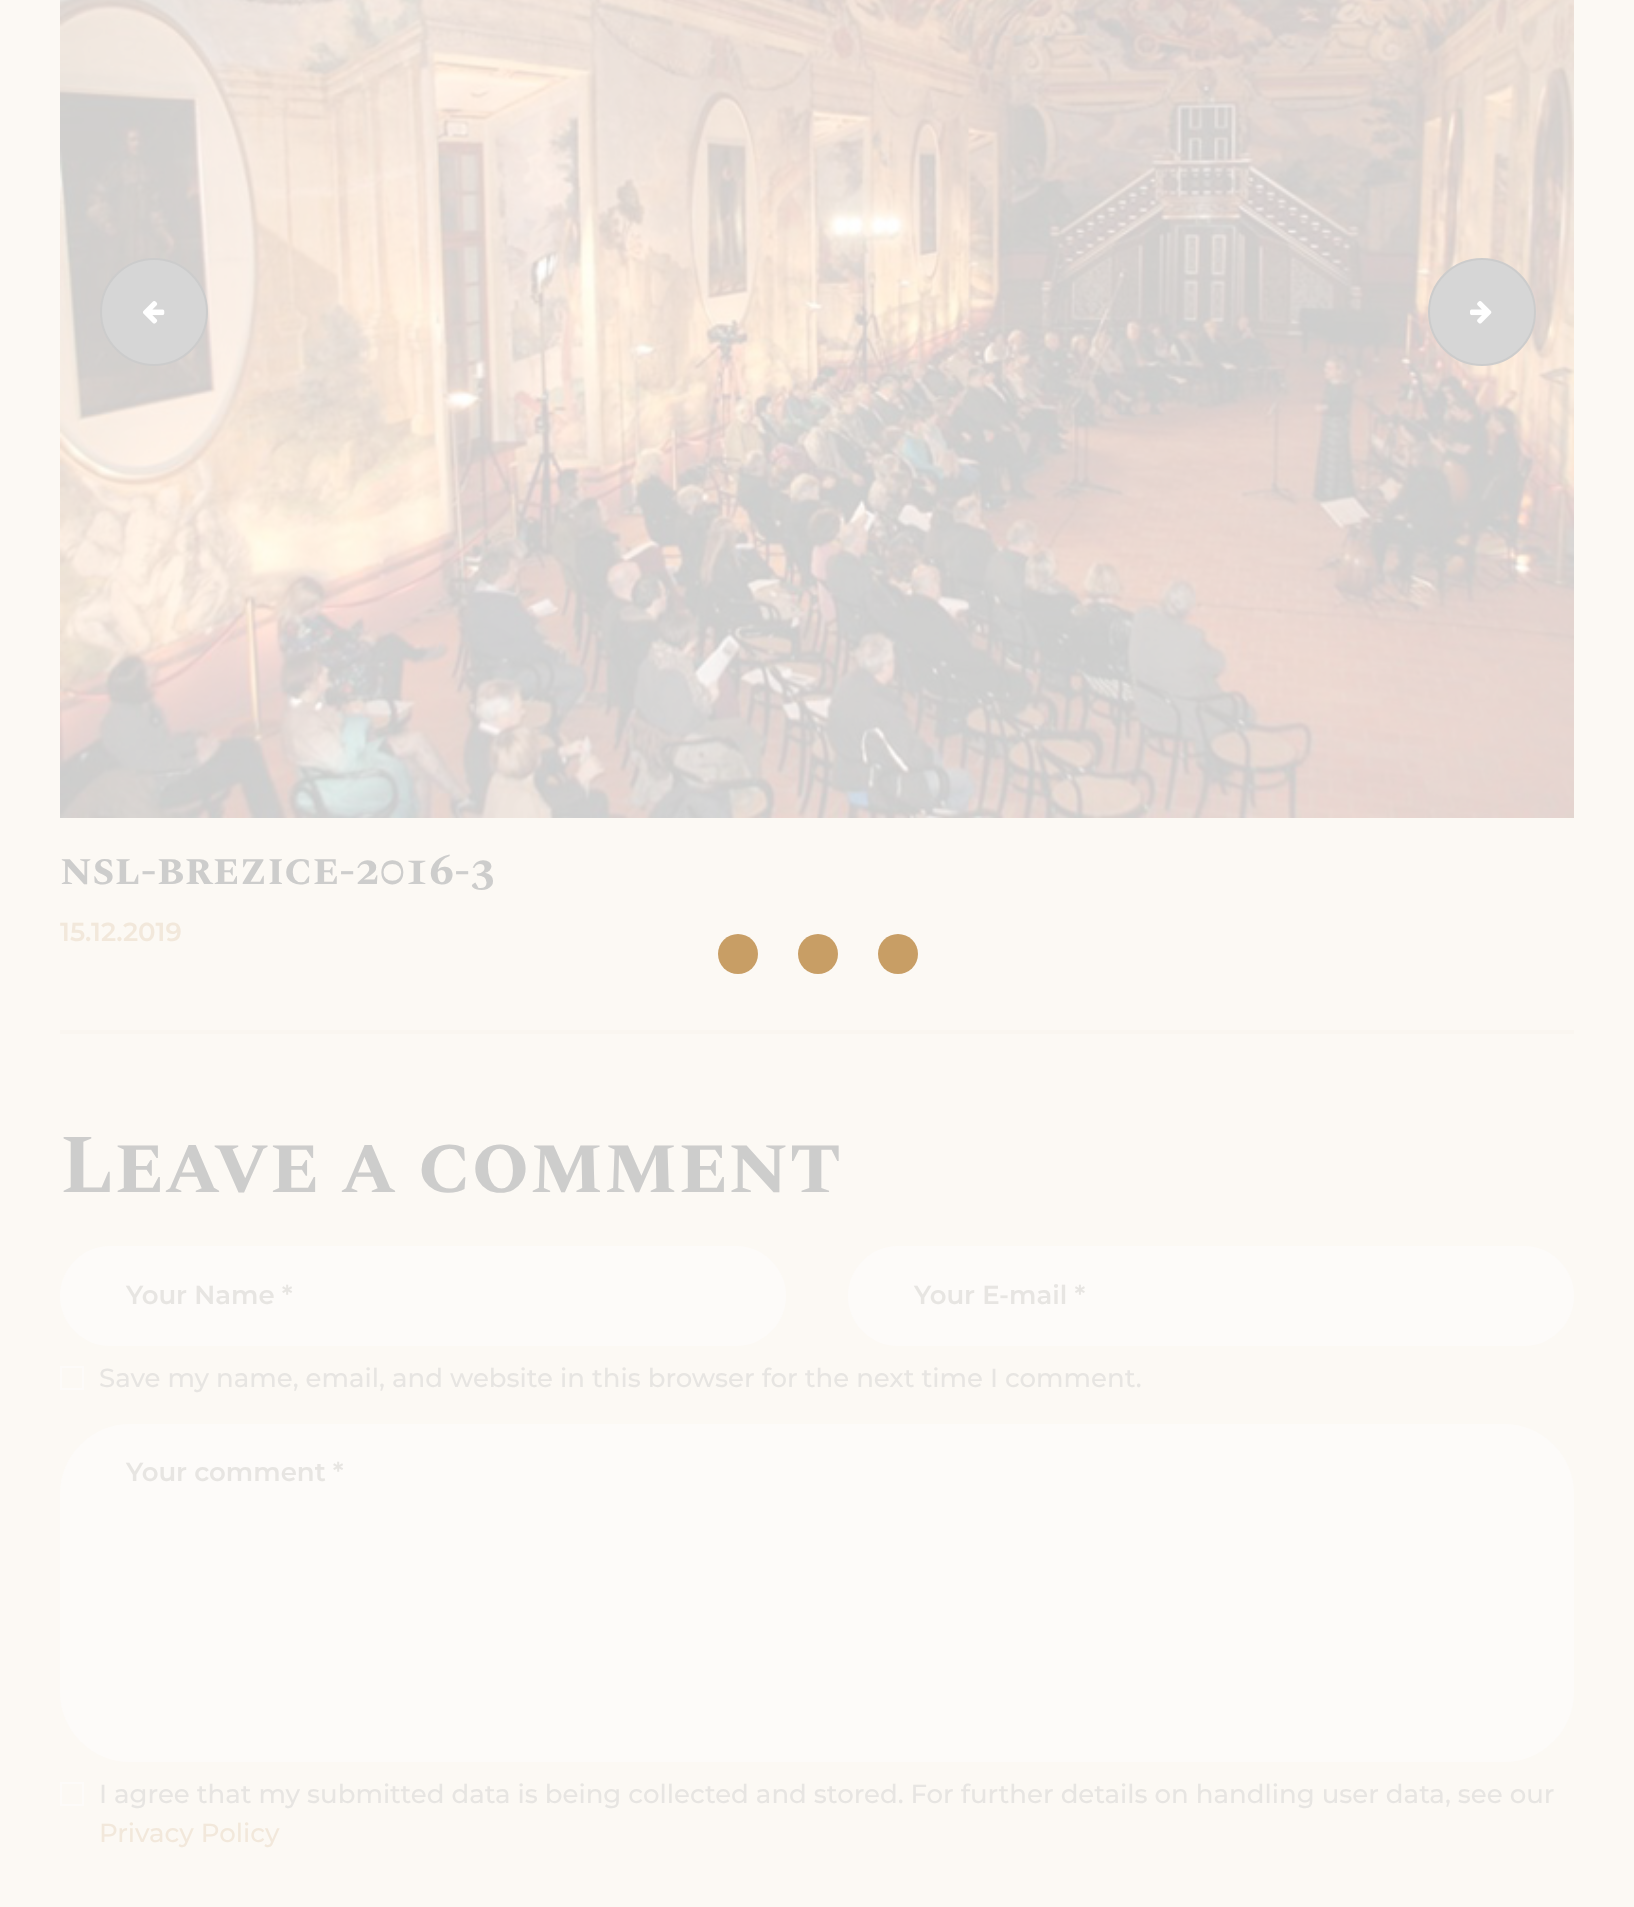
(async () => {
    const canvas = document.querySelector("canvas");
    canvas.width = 1634;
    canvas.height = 1907;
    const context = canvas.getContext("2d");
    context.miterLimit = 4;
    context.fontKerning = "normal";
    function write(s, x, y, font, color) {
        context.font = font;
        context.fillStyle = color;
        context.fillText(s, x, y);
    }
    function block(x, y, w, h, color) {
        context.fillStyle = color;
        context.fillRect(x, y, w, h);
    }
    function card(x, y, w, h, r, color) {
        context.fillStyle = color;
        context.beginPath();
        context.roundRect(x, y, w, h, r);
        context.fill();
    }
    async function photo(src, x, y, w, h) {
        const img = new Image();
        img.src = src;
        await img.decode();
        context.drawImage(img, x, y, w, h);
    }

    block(0, 0, 1634, 1907, "rgb(252, 249, 244)");
    await photo("media/1.png", 60, 0, 1514, 818);
    context.fillStyle = "rgb(214, 214, 214)";
    context.beginPath();
    context.arc(154, 312, 53, 0, Math.PI * 2);
    context.fill();
    context.strokeStyle = "rgb(204, 204, 204)";
    context.lineWidth = 2;
    context.stroke();
    await photo("media/2.png", 142, 301, 23, 23);
    context.beginPath();
    context.arc(1482, 312, 53, 0, Math.PI * 2);
    context.fill();
    context.stroke();
    await photo("media/3.png", 1470, 301, 22, 23);
    write("nsl-brezice-2016-3", 60, 884, "bold 44px Spectral SC", "rgb(205, 205, 204)");
    write("15.12.2019", 60, 941, "600 26px Montserrat", "rgb(242, 232, 219)");
    block(60, 1030, 1514, 4, "rgb(250, 246, 240)");
    write("Leave a comment", 60, 1192, "bold 83.25px Spectral SC", "rgb(205, 205, 204)");
    card(60, 1246, 726, 100, 50, "rgb(253, 251, 249)");
    write("Your Name *", 126, 1304, "600 26px Montserrat", "rgb(231, 229, 226)");
    card(848, 1246, 726, 100, 50, "rgb(253, 251, 249)");
    write("Your E-mail *", 914, 1304, "600 26px Montserrat", "rgb(231, 229, 226)");
    context.strokeStyle = "rgb(253, 251, 249)";
    context.strokeRect(61, 1367, 22, 22);
    write("Save my name, email, and website in this browser for the next time I comment.", 99, 1387, "500 26px Montserrat", "rgb(231, 229, 226)");
    card(60, 1424, 1514, 338, 70, "rgb(253, 251, 249)");
    write("Your comment *", 126, 1481, "600 26px Montserrat", "rgb(231, 229, 226)");
    context.strokeRect(61, 1783, 22, 22);
    write("I agree that my submitted data is being collected and stored. For further details on handling user data, see our", 99, 1803, "500 26px Montserrat", "rgb(231, 229, 226)");
    write("Privacy Policy", 99, 1842, "500 26px Montserrat", "rgb(242, 232, 219)");
    context.fillStyle = "rgb(200, 158, 101)";
    context.beginPath();
    context.arc(738, 954, 20, 0, Math.PI * 2);
    context.fill();
    context.beginPath();
    context.arc(818, 954, 20, 0, Math.PI * 2);
    context.fill();
    context.beginPath();
    context.arc(898, 954, 20, 0, Math.PI * 2);
    context.fill();
})();
